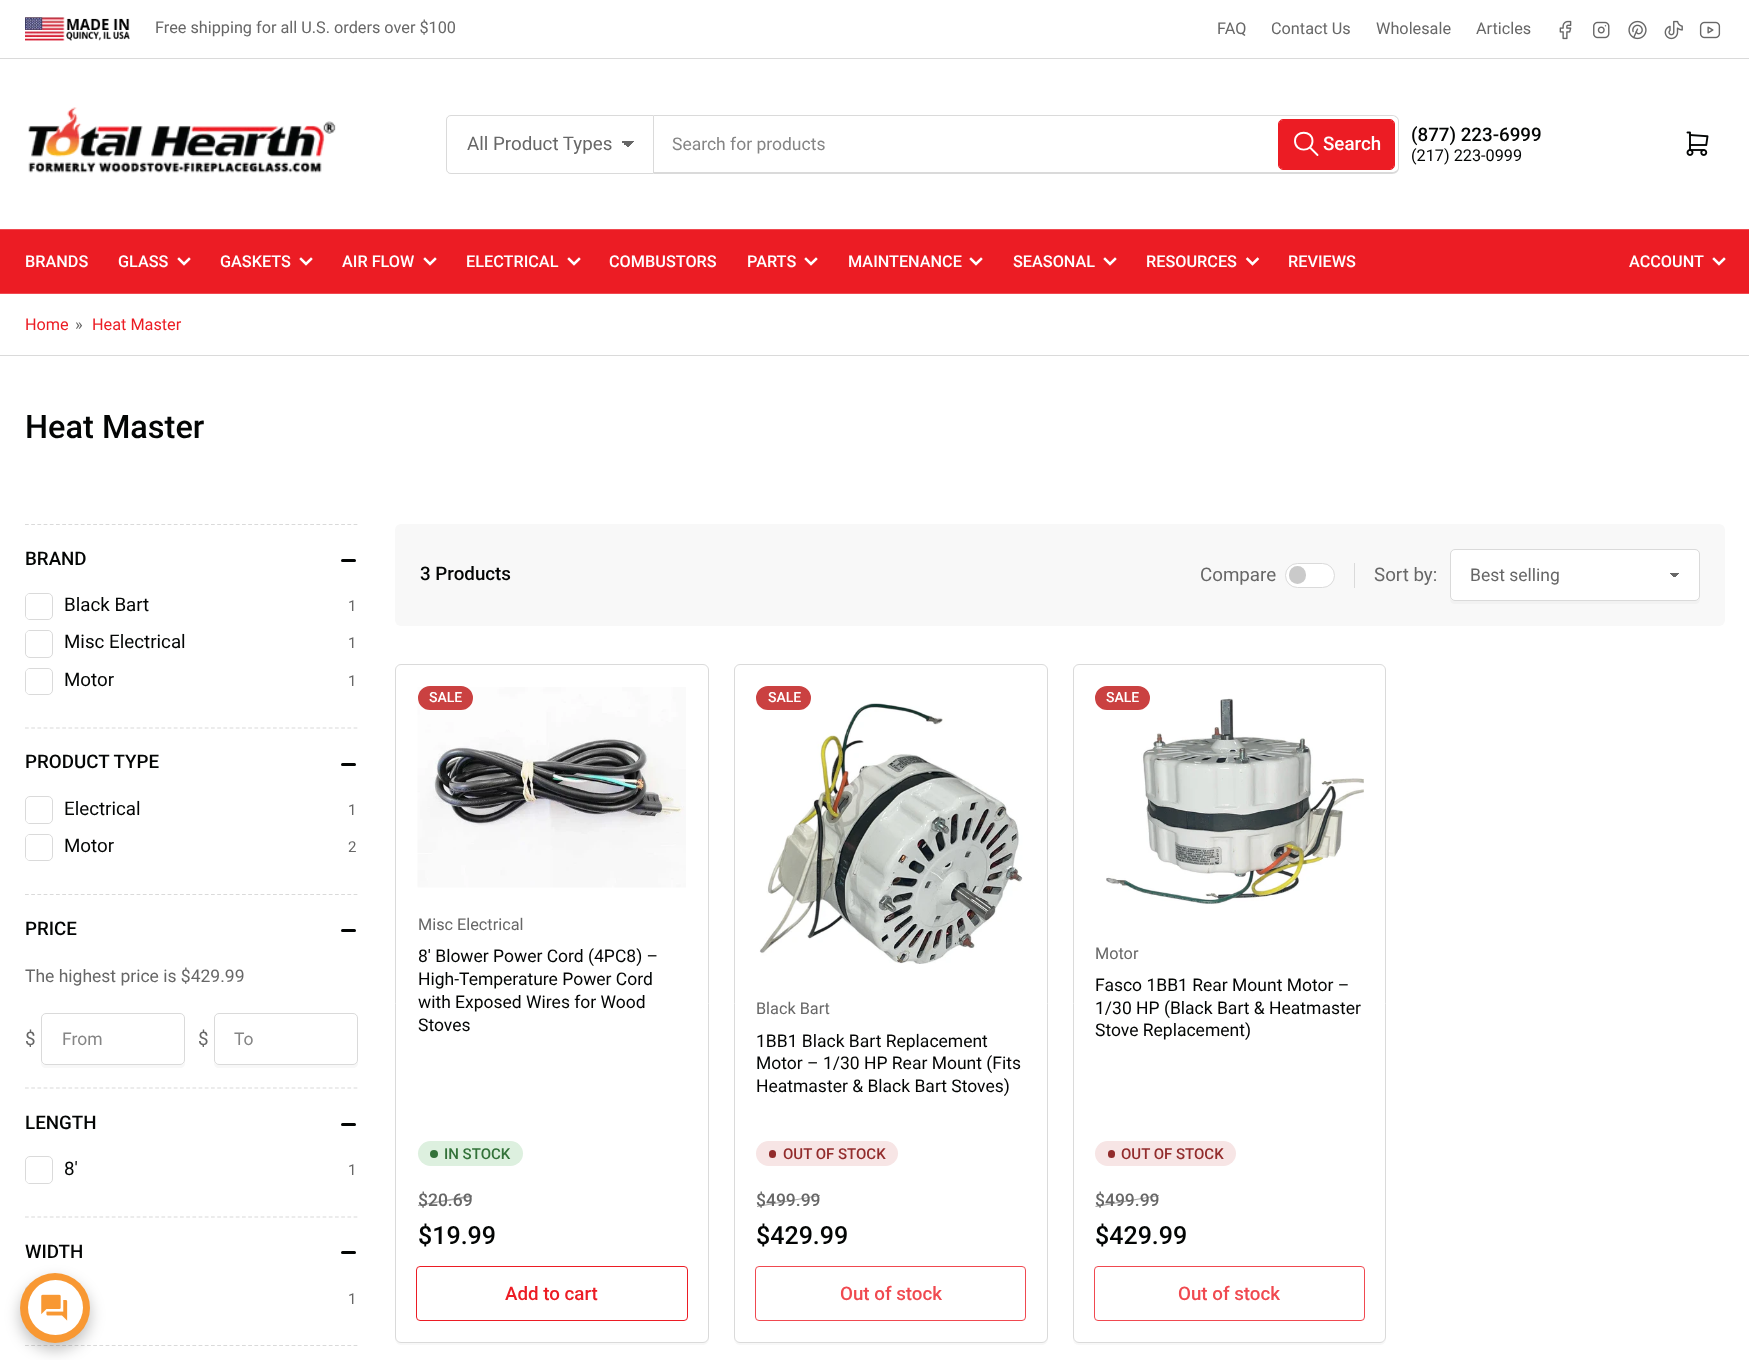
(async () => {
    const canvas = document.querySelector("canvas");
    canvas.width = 1749;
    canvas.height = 1360;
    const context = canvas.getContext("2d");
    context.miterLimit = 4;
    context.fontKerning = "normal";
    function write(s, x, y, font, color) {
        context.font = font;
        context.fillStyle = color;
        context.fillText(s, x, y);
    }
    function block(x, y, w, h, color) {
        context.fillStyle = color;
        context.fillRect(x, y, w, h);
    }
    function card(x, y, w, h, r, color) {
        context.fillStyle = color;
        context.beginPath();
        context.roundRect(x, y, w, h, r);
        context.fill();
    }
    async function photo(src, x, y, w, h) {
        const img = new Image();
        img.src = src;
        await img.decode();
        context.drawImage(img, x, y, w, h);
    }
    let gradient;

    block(0, 0, 1749, 1360, "rgb(255, 255, 255)");
    block(0, 58, 1749, 1, "rgb(218, 218, 218)");
    await photo("media/1.png", 25, 17, 105, 24);
    write("Free shipping for all U.S. orders over $100", 155, 33, "16.25px Roboto", "rgb(103, 103, 103)");
    write("FAQ", 1217, 34, "16.25px Roboto", "rgb(103, 103, 103)");
    write("Contact Us", 1271, 34, "16.25px Roboto", "rgb(103, 103, 103)");
    write("Wholesale", 1376, 34, "16.25px Roboto", "rgb(103, 103, 103)");
    write("Articles", 1476, 34, "16.25px Roboto", "rgb(103, 103, 103)");
    await photo("media/2.png", 1559, 20, 13, 20);
    await photo("media/3.png", 1593, 21, 17, 18);
    await photo("media/4.png", 1628, 20, 19, 20);
    await photo("media/5.png", 1664, 20, 19, 20);
    await photo("media/6.png", 1699, 21, 22, 18);
    await photo("media/7.png", 28, 107, 308, 66);
    context.beginPath();
    context.roundRect(446.5, 115.5, 207, 58, 4.5);
    context.strokeStyle = "rgb(218, 218, 218)";
    context.stroke();
    context.fillStyle = "rgb(255, 255, 255)";
    context.beginPath();
    context.roundRect(446, 115, 208, 59, [5, 0, 0, 5]);
    context.fill();
    gradient = context.createLinearGradient(628, 141, 634, 148);
    gradient.addColorStop(0.5, "rgb(103, 103, 103)");
    gradient.addColorStop(0.5, "rgb(255, 255, 255)");
    context.fillStyle = gradient;
    context.fillRect(628, 141, 6, 7);
    gradient = context.createLinearGradient(621, 148, 628, 141);
    gradient.addColorStop(0.5, "rgb(255, 255, 255)");
    gradient.addColorStop(0.5, "rgb(103, 103, 103)");
    context.fillStyle = gradient;
    context.fillRect(621, 141, 7, 6);
    context.beginPath();
    context.roundRect(446.5, 115.5, 207, 58, [4.5, 0, 0, 4.5]);
    context.stroke();
    write("All Product Types", 467, 150, "18.75px Roboto", "rgb(103, 103, 103)");
    context.fillStyle = "rgb(218, 218, 218)";
    context.beginPath();
    context.moveTo(654, 115);
    context.lineTo(1392, 115);
    context.bezierCurveTo(1396, 115, 1399, 118, 1399, 121);
    context.lineTo(1399, 168);
    context.bezierCurveTo(1399, 171, 1396, 174, 1392, 174);
    context.lineTo(654, 174);
    context.closePath();
    context.moveTo(654, 116);
    context.lineTo(1392, 116);
    context.bezierCurveTo(1395, 116, 1398, 118, 1398, 121);
    context.lineTo(1398, 168);
    context.bezierCurveTo(1398, 170, 1395, 172, 1392, 172);
    context.lineTo(654, 172);
    context.closePath();
    context.fill("evenodd");
    write("Search for products", 672, 150, "17.5px Roboto", "rgb(133, 133, 133)");
    context.beginPath();
    context.roundRect(1278.5, 119.5, 116, 50, 4.5);
    context.strokeStyle = "rgb(236, 28, 36)";
    context.stroke();
    card(1279, 120, 115, 49, 4, "rgb(236, 28, 36)");
    context.beginPath();
    context.moveTo(1295, 141);
    context.bezierCurveTo(1295, 152.5, 1312.5, 152.5, 1312.5, 141);
    context.bezierCurveTo(1312.5, 130, 1295, 130, 1295, 141);
    context.moveTo(1317.5, 155);
    context.lineTo(1310, 147.5);
    context.strokeStyle = "rgb(255, 255, 255)";
    context.lineWidth = 1.9;
    context.lineCap = "round";
    context.lineJoin = "round";
    context.stroke();
    write("Search", 1323, 150, "500 18.75px Roboto", "rgb(255, 255, 255)");
    write("(877) 223-6999", 1411, 141, "500 18.75px Roboto", "rgb(3, 5, 4)");
    write("(217) 223-0999", 1411, 161, "16.25px Roboto", "rgb(3, 5, 4)");
    await photo("media/8.png", 1686, 131, 23, 25);
    block(0, 230, 1749, 63, "rgb(236, 28, 36)");
    block(0, 229, 1749, 1, "rgb(240, 73, 80)");
    block(0, 293, 1749, 1, "rgb(240, 73, 80)");
    write("BRANDS", 25, 267, "500 16.25px Roboto", "rgb(255, 255, 255)");
    write("GLASS", 118, 267, "500 16.25px Roboto", "rgb(255, 255, 255)");
    context.beginPath();
    context.moveTo(189, 259);
    context.lineTo(184, 264);
    context.lineTo(179, 259);
    context.lineWidth = 2.5;
    context.lineCap = "square";
    context.lineJoin = "miter";
    context.stroke();
    write("GASKETS", 220, 267, "500 16.25px Roboto", "rgb(255, 255, 255)");
    context.beginPath();
    context.moveTo(311, 259);
    context.lineTo(306, 264);
    context.lineTo(301, 259);
    context.stroke();
    write("AIR FLOW", 342, 267, "500 16.25px Roboto", "rgb(255, 255, 255)");
    context.beginPath();
    context.moveTo(435, 259);
    context.lineTo(430, 264);
    context.lineTo(425, 259);
    context.stroke();
    write("ELECTRICAL", 466, 267, "500 16.25px Roboto", "rgb(255, 255, 255)");
    context.beginPath();
    context.moveTo(579, 259);
    context.lineTo(574, 264);
    context.lineTo(569, 259);
    context.stroke();
    write("COMBUSTORS", 609, 267, "500 16.25px Roboto", "rgb(255, 255, 255)");
    write("PARTS", 747, 267, "500 16.25px Roboto", "rgb(255, 255, 255)");
    context.beginPath();
    context.moveTo(816, 259);
    context.lineTo(811, 264);
    context.lineTo(806, 259);
    context.stroke();
    write("MAINTENANCE", 848, 267, "500 16.25px Roboto", "rgb(255, 255, 255)");
    context.beginPath();
    context.moveTo(981, 259);
    context.lineTo(976, 264);
    context.lineTo(971, 259);
    context.stroke();
    write("SEASONAL", 1013, 267, "500 16.25px Roboto", "rgb(255, 255, 255)");
    context.beginPath();
    context.moveTo(1115, 259);
    context.lineTo(1110, 264);
    context.lineTo(1105, 259);
    context.stroke();
    write("RESOURCES", 1146, 267, "500 16.25px Roboto", "rgb(255, 255, 255)");
    context.beginPath();
    context.moveTo(1257.5, 259);
    context.lineTo(1252.5, 264);
    context.lineTo(1247.5, 259);
    context.stroke();
    write("REVIEWS", 1288, 267, "500 16.25px Roboto", "rgb(255, 255, 255)");
    write("ACCOUNT", 1629, 267, "500 16.25px Roboto", "rgb(255, 255, 255)");
    context.beginPath();
    context.moveTo(1724, 259);
    context.lineTo(1719, 264);
    context.lineTo(1714, 259);
    context.stroke();
    block(0, 355, 1749, 1, "rgb(218, 218, 218)");
    write("Home", 25, 330, "16.25px Roboto", "rgb(236, 28, 36)");
    write("»", 75, 330, "16.25px Roboto", "rgb(103, 103, 103)");
    write("Heat Master", 92, 330, "16.25px Roboto", "rgb(236, 28, 36)");
    write("Heat Master", 25, 438, "500 32.5px Roboto", "rgb(3, 5, 4)");
    context.beginPath();
    context.moveTo(25, 524.5);
    context.lineTo(357.5, 524.5);
    context.strokeStyle = "rgb(218, 218, 218)";
    context.lineWidth = 1.2;
    context.lineCap = "butt";
    context.setLineDash([3.75, 2.45]);
    context.stroke();
    context.beginPath();
    context.moveTo(25, 728);
    context.lineTo(357.5, 728);
    context.stroke();
    write("BRAND", 25, 565, "500 18.75px Roboto", "rgb(3, 5, 4)");
    card(341, 559, 9, 3, 1.5, "rgb(3, 5, 4)");
    card(346, 559, 10, 3, 1.5, "rgb(3, 5, 4)");
    context.beginPath();
    context.roundRect(25.5, 593.5, 27, 26, 4.5);
    context.lineWidth = 1;
    context.setLineDash([]);
    context.stroke();
    card(26, 594, 25, 25, 4, "rgb(255, 255, 255)");
    write("Black Bart", 64, 611, "18.75px Roboto", "rgb(3, 5, 4)");
    write("1", 348, 611, "15px Roboto", "rgb(103, 103, 103)");
    context.beginPath();
    context.roundRect(25.5, 630.5, 27, 27, 4.5);
    context.stroke();
    card(26, 631, 25, 25, 4, "rgb(255, 255, 255)");
    write("Misc Electrical", 64, 648, "18.75px Roboto", "rgb(3, 5, 4)");
    write("1", 348, 648, "15px Roboto", "rgb(103, 103, 103)");
    context.beginPath();
    context.roundRect(25.5, 668.5, 27, 26, 4.5);
    context.stroke();
    card(26, 669, 25, 25, 4, "rgb(255, 255, 255)");
    write("Motor", 64, 686, "18.75px Roboto", "rgb(3, 5, 4)");
    write("1", 348, 686, "15px Roboto", "rgb(103, 103, 103)");
    context.beginPath();
    context.moveTo(25, 894.5);
    context.lineTo(357.5, 894.5);
    context.lineWidth = 1.2;
    context.setLineDash([3.75, 2.45]);
    context.stroke();
    write("PRODUCT TYPE", 25, 768, "500 18.75px Roboto", "rgb(3, 5, 4)");
    card(341, 763, 9, 3, 1.5, "rgb(3, 5, 4)");
    card(346, 763, 10, 3, 1.5, "rgb(3, 5, 4)");
    context.beginPath();
    context.roundRect(25.5, 796.5, 27, 27, 4.5);
    context.lineWidth = 1;
    context.setLineDash([]);
    context.stroke();
    card(26, 798, 25, 25, 4, "rgb(255, 255, 255)");
    write("Electrical", 64, 815, "18.75px Roboto", "rgb(3, 5, 4)");
    write("1", 348, 815, "15px Roboto", "rgb(103, 103, 103)");
    context.beginPath();
    context.roundRect(25.5, 834.5, 27, 26, 4.5);
    context.stroke();
    card(26, 835, 25, 25, 4, "rgb(255, 255, 255)");
    write("Motor", 64, 852, "18.75px Roboto", "rgb(3, 5, 4)");
    write("2", 348, 852, "15px Roboto", "rgb(103, 103, 103)");
    context.beginPath();
    context.moveTo(25, 1088);
    context.lineTo(357.5, 1088);
    context.lineWidth = 1.2;
    context.setLineDash([3.75, 2.45]);
    context.stroke();
    write("PRICE", 25, 935, "500 18.75px Roboto", "rgb(3, 5, 4)");
    card(341, 929, 9, 3, 1.5, "rgb(3, 5, 4)");
    card(346, 929, 10, 3, 1.5, "rgb(3, 5, 4)");
    write("The highest price is $429.99", 25, 982, "17.5px Roboto", "rgb(103, 103, 103)");
    write("$", 25, 1045, "18.75px Roboto", "rgb(103, 103, 103)");
    context.fillStyle = "rgb(248, 248, 248)";
    context.beginPath();
    context.moveTo(41, 1018);
    context.lineTo(41, 1063);
    context.bezierCurveTo(41, 1066, 43, 1068, 46, 1068);
    context.lineTo(180, 1068);
    context.bezierCurveTo(183, 1068, 185, 1066, 185, 1063);
    context.lineTo(185, 1060);
    context.bezierCurveTo(185, 1063, 183, 1065, 180, 1065);
    context.lineTo(46, 1065);
    context.bezierCurveTo(43, 1065, 41, 1063, 41, 1060);
    context.closePath();
    context.fill();
    context.beginPath();
    context.roundRect(41.5, 1013.5, 143, 51, 4.5);
    context.lineWidth = 1;
    context.setLineDash([]);
    context.stroke();
    write("From", 62, 1045, "17.5px Roboto", "rgb(133, 133, 133)");
    write("$", 198, 1045, "18.75px Roboto", "rgb(103, 103, 103)");
    context.fillStyle = "rgb(248, 248, 248)";
    context.beginPath();
    context.moveTo(214, 1062);
    context.lineTo(214, 1063);
    context.bezierCurveTo(214, 1066, 216, 1068, 219, 1068);
    context.lineTo(353, 1068);
    context.bezierCurveTo(356, 1068, 358, 1066, 358, 1063);
    context.lineTo(358, 1020);
    context.lineTo(358, 1018);
    context.lineTo(358, 1060);
    context.bezierCurveTo(358, 1063, 355, 1065, 352, 1065);
    context.lineTo(219, 1065);
    context.bezierCurveTo(217, 1065, 215, 1064, 214, 1062);
    context.closePath();
    context.fill();
    context.beginPath();
    context.roundRect(214.5, 1013.5, 143, 51, 4.5);
    context.stroke();
    write("To", 234, 1045, "17.5px Roboto", "rgb(133, 133, 133)");
    context.beginPath();
    context.moveTo(25, 1217);
    context.lineTo(357.5, 1217);
    context.lineWidth = 1.2;
    context.setLineDash([3.75, 2.45]);
    context.stroke();
    write("LENGTH", 25, 1129, "500 18.75px Roboto", "rgb(3, 5, 4)");
    card(341, 1123, 9, 3, 1.5, "rgb(3, 5, 4)");
    card(346, 1123, 10, 3, 1.5, "rgb(3, 5, 4)");
    context.beginPath();
    context.roundRect(25.5, 1156.5, 27, 27, 4.5);
    context.lineWidth = 1;
    context.setLineDash([]);
    context.stroke();
    card(26, 1158, 25, 25, 4, "rgb(255, 255, 255)");
    write("8'", 64, 1175, "18.75px Roboto", "rgb(3, 5, 4)");
    write("1", 348, 1175, "15px Roboto", "rgb(103, 103, 103)");
    context.beginPath();
    context.moveTo(25, 1345.5);
    context.lineTo(357.5, 1345.5);
    context.lineWidth = 1.2;
    context.setLineDash([3.75, 2.45]);
    context.stroke();
    write("WIDTH", 25, 1258, "500 18.75px Roboto", "rgb(3, 5, 4)");
    card(341, 1251, 9, 3, 1.5, "rgb(3, 5, 4)");
    card(346, 1251, 10, 3, 1.5, "rgb(3, 5, 4)");
    context.beginPath();
    context.roundRect(25.5, 1285.5, 27, 27, 4.5);
    context.lineWidth = 1;
    context.setLineDash([]);
    context.stroke();
    write("1", 348, 1304, "15px Roboto", "rgb(103, 103, 103)");
    card(395, 524, 1330, 102, 6, "rgb(248, 248, 248)");
    write("3 Products", 420, 580, "500 18.75px Roboto", "rgb(3, 5, 4)");
    block(1354, 563, 1, 25, "rgb(218, 218, 218)");
    write("Compare", 1200, 581, "18.75px Roboto", "rgb(103, 103, 103)");
    context.fillStyle = "rgb(255, 255, 255)";
    context.beginPath();
    context.roundRect(1285.5, 563.5, 49, 24, 12);
    context.fill();
    context.stroke();
    card(1289, 566, 17, 18, 8.5, "rgb(202, 202, 202)");
    write("Sort by:", 1374, 581, "18.75px Roboto", "rgb(103, 103, 103)");
    context.fillStyle = "rgb(242, 242, 242)";
    context.beginPath();
    context.moveTo(1450, 596);
    context.lineTo(1450, 599);
    context.bezierCurveTo(1450, 602, 1452, 604, 1455, 604);
    context.lineTo(1695, 604);
    context.bezierCurveTo(1698, 604, 1700, 602, 1700, 599);
    context.lineTo(1700, 596);
    context.bezierCurveTo(1700, 599, 1698, 601, 1695, 601);
    context.lineTo(1455, 601);
    context.bezierCurveTo(1452, 601, 1450, 599, 1450, 596);
    context.closePath();
    context.fill();
    card(1451, 550, 248, 50, 4, "rgb(255, 255, 255)");
    gradient = context.createLinearGradient(1674, 572, 1680, 578);
    gradient.addColorStop(0.5, "rgb(103, 103, 103)");
    gradient.addColorStop(0.5, "rgb(255, 255, 255)");
    context.fillStyle = gradient;
    context.fillRect(1674, 573, 6, 4);
    gradient = context.createLinearGradient(1668, 578, 1674, 572);
    gradient.addColorStop(0.5, "rgb(255, 255, 255)");
    gradient.addColorStop(0.5, "rgb(103, 103, 103)");
    context.fillStyle = gradient;
    context.fillRect(1668, 573, 6, 4);
    context.beginPath();
    context.roundRect(1450.5, 549.5, 249, 51, 4.5);
    context.stroke();
    write("Best selling", 1470, 581, "17.5px Roboto", "rgb(103, 103, 103)");
    context.fillStyle = "rgb(248, 248, 248)";
    context.beginPath();
    context.moveTo(395, 1336);
    context.lineTo(395, 1339);
    context.bezierCurveTo(395, 1342, 398, 1345, 401, 1345);
    context.lineTo(703, 1345);
    context.bezierCurveTo(706, 1345, 709, 1342, 709, 1339);
    context.lineTo(709, 670);
    context.lineTo(709, 1336);
    context.bezierCurveTo(709, 1340, 706, 1342, 702, 1342);
    context.lineTo(401, 1342);
    context.bezierCurveTo(398, 1342, 395, 1340, 395, 1336);
    context.closePath();
    context.fill();
    context.fillStyle = "rgb(255, 255, 255)";
    context.beginPath();
    context.roundRect(395.5, 664.5, 313, 678, 5.5);
    context.fill();
    context.stroke();
    await photo("media/9.png", 417, 687, 269, 201);
    context.fillStyle = "rgb(202, 65, 65)";
    context.beginPath();
    context.roundRect(419.5, 687.5, 52, 21, 10.5);
    context.fill();
    context.strokeStyle = "rgb(202, 65, 65)";
    context.lineWidth = 3;
    context.stroke();
    write("SALE", 429, 702, "500 14px Roboto", "rgb(255, 255, 255)");
    write("Misc Electrical", 418, 930, "16.25px Roboto", "rgb(103, 103, 103)");
    write("8' Blower Power Cord (4PC8) –", 418, 962, "17.5px Roboto", "rgb(3, 5, 4)");
    write("High-Temperature Power Cord", 418, 985, "17.5px Roboto", "rgb(3, 5, 4)");
    write("with Exposed Wires for Wood", 418, 1008, "17.5px Roboto", "rgb(3, 5, 4)");
    write("Stoves", 418, 1031, "17.5px Roboto", "rgb(3, 5, 4)");
    card(418, 1141, 105, 25, 12.5, "rgb(221, 240, 223)");
    context.fillStyle = "rgb(51, 114, 57)";
    context.beginPath();
    context.arc(434, 1154, 4, 0, Math.PI * 2);
    context.fill();
    write("IN STOCK", 444, 1159, "500 15px Roboto", "rgb(51, 114, 57)");
    write("$20.69", 418, 1206, "500 17.5px Roboto", "rgb(103, 103, 103)");
    context.fillStyle = "rgba(103, 103, 103, 0.6)";
    context.beginPath();
    context.moveTo(418, 1205);
    context.lineTo(472, 1195);
    context.lineTo(472, 1197);
    context.lineTo(418, 1206);
    context.closePath();
    context.fill();
    write("$19.99", 418, 1244, "500 25px Roboto", "rgb(3, 5, 4)");
    context.beginPath();
    context.roundRect(416.5, 1266.5, 271, 54, 3.5);
    context.strokeStyle = "rgb(236, 28, 36)";
    context.lineWidth = 1;
    context.stroke();
    write("Add to cart", 505, 1300, "500 18.75px Roboto", "rgb(236, 28, 36)");
    context.fillStyle = "rgb(248, 248, 248)";
    context.beginPath();
    context.moveTo(734, 1338);
    context.lineTo(734, 1339);
    context.bezierCurveTo(734, 1342, 737, 1345, 740, 1345);
    context.lineTo(1042, 1345);
    context.bezierCurveTo(1045, 1345, 1048, 1342, 1048, 1339);
    context.lineTo(1048, 672);
    context.lineTo(1047, 670);
    context.lineTo(1048, 1336);
    context.bezierCurveTo(1048, 1340, 1045, 1342, 1041, 1342);
    context.lineTo(740, 1342);
    context.bezierCurveTo(737, 1342, 735, 1341, 734, 1338);
    context.closePath();
    context.fill();
    context.fillStyle = "rgb(255, 255, 255)";
    context.beginPath();
    context.roundRect(734.5, 664.5, 313, 678, 5.5);
    context.fill();
    context.strokeStyle = "rgb(218, 218, 218)";
    context.stroke();
    await photo("media/10.png", 759, 703, 264, 261);
    context.fillStyle = "rgb(202, 65, 65)";
    context.beginPath();
    context.roundRect(757.5, 687.5, 52, 21, 10.5);
    context.fill();
    context.strokeStyle = "rgb(202, 65, 65)";
    context.lineWidth = 3;
    context.stroke();
    write("SALE", 768, 702, "500 14px Roboto", "rgb(255, 255, 255)");
    write("Black Bart", 756, 1014, "16.25px Roboto", "rgb(103, 103, 103)");
    write("1BB1 Black Bart Replacement", 756, 1047, "17.5px Roboto", "rgb(3, 5, 4)");
    write("Motor – 1/30 HP Rear Mount (Fits", 756, 1069, "17.5px Roboto", "rgb(3, 5, 4)");
    write("Heatmaster & Black Bart Stoves)", 756, 1092, "17.5px Roboto", "rgb(3, 5, 4)");
    card(756, 1141, 142, 25, 12.5, "rgb(247, 229, 229)");
    card(769, 1150, 7, 8, 3.5, "rgb(146, 44, 44)");
    write("OUT OF STOCK", 783, 1159, "500 15px Roboto", "rgb(146, 44, 44)");
    write("$499.99", 756, 1206, "500 17.5px Roboto", "rgb(103, 103, 103)");
    context.fillStyle = "rgba(103, 103, 103, 0.6)";
    context.beginPath();
    context.moveTo(757, 1206);
    context.lineTo(820, 1195);
    context.lineTo(820, 1196);
    context.lineTo(757, 1207);
    context.closePath();
    context.fill();
    write("$429.99", 756, 1244, "500 25px Roboto", "rgb(3, 5, 4)");
    context.beginPath();
    context.roundRect(755.5, 1266.5, 270, 54, 3.5);
    context.strokeStyle = "rgb(240, 73, 80)";
    context.lineWidth = 1;
    context.stroke();
    write("Out of stock", 840, 1300, "500 18.75px Roboto", "rgb(240, 73, 80)");
    context.fillStyle = "rgb(248, 248, 248)";
    context.beginPath();
    context.moveTo(1073, 1339);
    context.bezierCurveTo(1073, 1342, 1075, 1345, 1079, 1345);
    context.lineTo(1380, 1345);
    context.bezierCurveTo(1384, 1345, 1386, 1342, 1386, 1338);
    context.bezierCurveTo(1385, 1341, 1383, 1342, 1380, 1342);
    context.lineTo(1079, 1342);
    context.bezierCurveTo(1076, 1342, 1074, 1341, 1073, 1339);
    context.closePath();
    context.fill();
    context.fillStyle = "rgb(255, 255, 255)";
    context.beginPath();
    context.roundRect(1073.5, 664.5, 312, 678, 5.5);
    context.fill();
    context.strokeStyle = "rgb(218, 218, 218)";
    context.stroke();
    await photo("media/11.png", 1106, 698, 258, 207);
    context.fillStyle = "rgb(202, 65, 65)";
    context.beginPath();
    context.roundRect(1096.5, 687.5, 52, 21, 10.5);
    context.fill();
    context.strokeStyle = "rgb(202, 65, 65)";
    context.lineWidth = 3;
    context.stroke();
    write("SALE", 1106, 702, "500 14px Roboto", "rgb(255, 255, 255)");
    write("Motor", 1095, 959, "16.25px Roboto", "rgb(103, 103, 103)");
    write("Fasco 1BB1 Rear Mount Motor –", 1095, 991, "17.5px Roboto", "rgb(3, 5, 4)");
    write("1/30 HP (Black Bart & Heatmaster", 1095, 1014, "17.5px Roboto", "rgb(3, 5, 4)");
    write("Stove Replacement)", 1095, 1036, "17.5px Roboto", "rgb(3, 5, 4)");
    card(1095, 1141, 141, 25, 12.5, "rgb(247, 229, 229)");
    card(1108, 1150, 7, 8, 3.5, "rgb(146, 44, 44)");
    write("OUT OF STOCK", 1121, 1159, "500 15px Roboto", "rgb(146, 44, 44)");
    write("$499.99", 1095, 1206, "500 17.5px Roboto", "rgb(103, 103, 103)");
    context.fillStyle = "rgba(103, 103, 103, 0.6)";
    context.beginPath();
    context.moveTo(1095, 1206);
    context.lineTo(1159, 1195);
    context.lineTo(1159, 1196);
    context.lineTo(1096, 1207);
    context.closePath();
    context.fill();
    write("$429.99", 1095, 1244, "500 25px Roboto", "rgb(3, 5, 4)");
    context.beginPath();
    context.roundRect(1094.5, 1266.5, 270, 54, 3.5);
    context.strokeStyle = "rgb(240, 73, 80)";
    context.lineWidth = 1;
    context.stroke();
    write("Out of stock", 1178, 1300, "500 18.75px Roboto", "rgb(240, 73, 80)");
    context.fillStyle = "rgba(0, 0, 0, 0.25)";
    context.filter = "blur(7.5px)";
    context.beginPath();
    context.roundRect(20, 1280, 70, 70, 35);
    context.fill();
    context.filter = "none";
    context.fillStyle = "rgb(248, 152, 51)";
    context.beginPath();
    context.arc(55, 1308, 35, 0, Math.PI * 2);
    context.fill();
    context.fillStyle = "rgb(255, 255, 255)";
    context.beginPath();
    context.arc(55.5, 1307.5, 27.5, 0, Math.PI * 2);
    context.fill();
    await photo("media/12.png", 41, 1294, 27, 27);
})();
